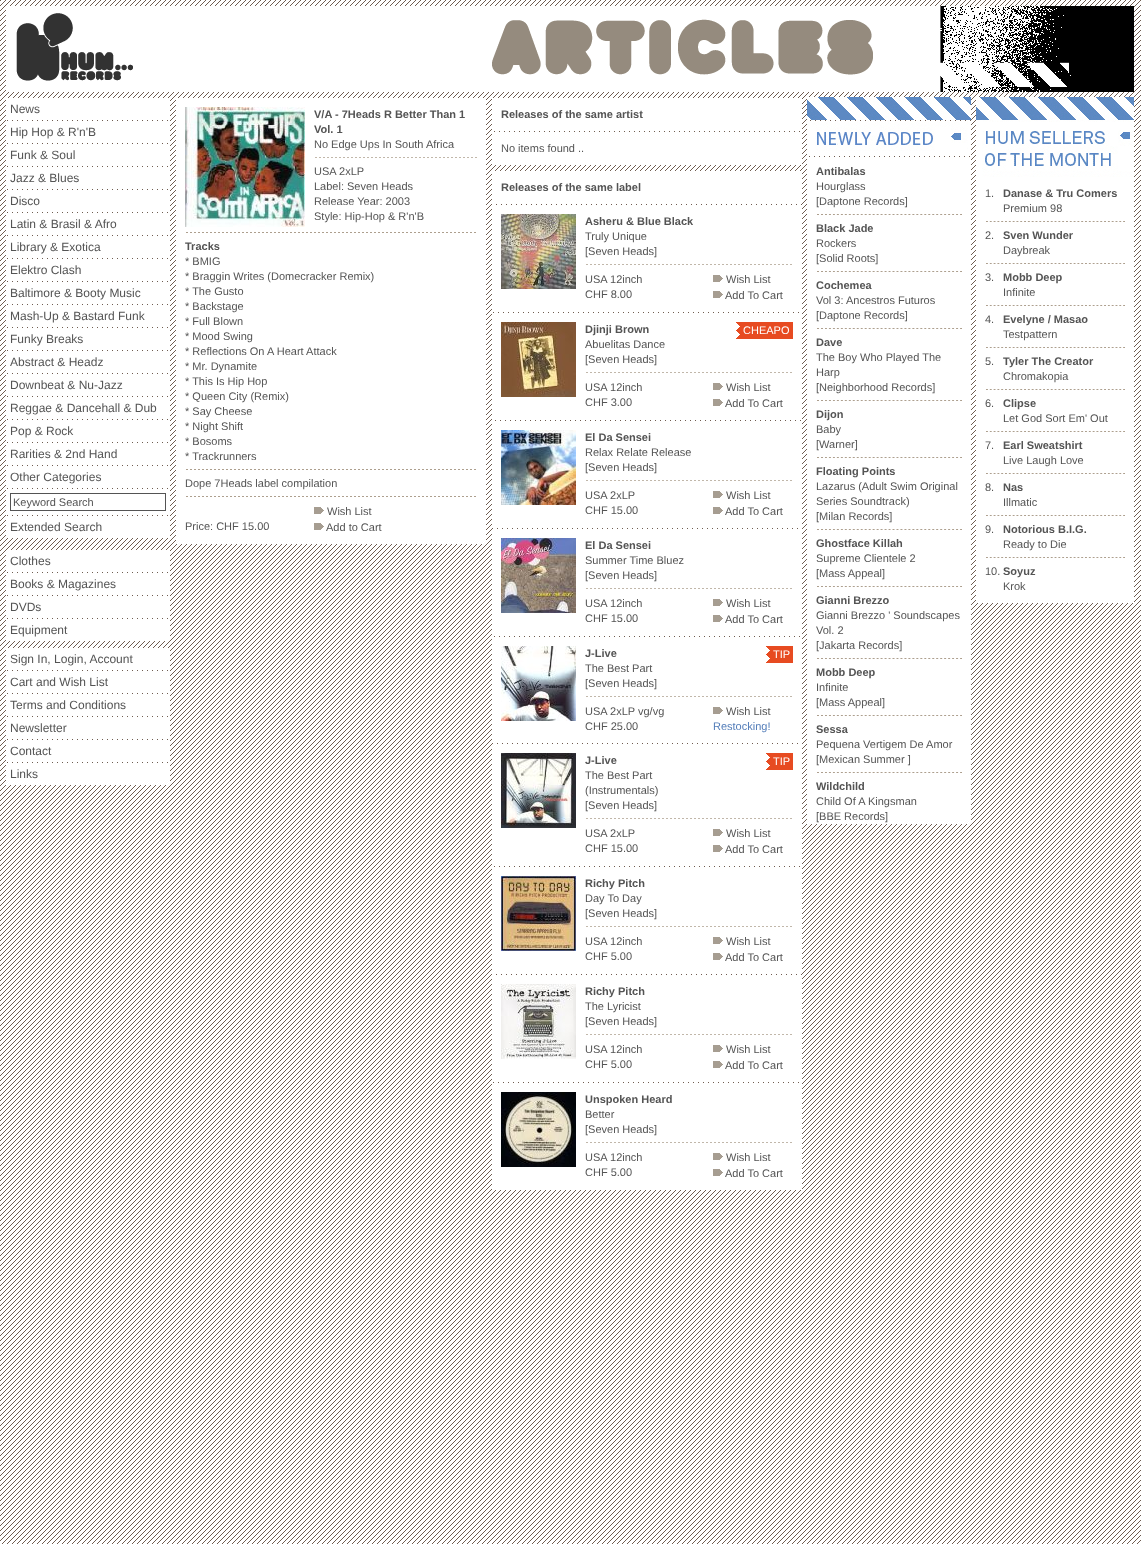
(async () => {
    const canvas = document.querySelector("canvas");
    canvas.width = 1141;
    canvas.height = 1544;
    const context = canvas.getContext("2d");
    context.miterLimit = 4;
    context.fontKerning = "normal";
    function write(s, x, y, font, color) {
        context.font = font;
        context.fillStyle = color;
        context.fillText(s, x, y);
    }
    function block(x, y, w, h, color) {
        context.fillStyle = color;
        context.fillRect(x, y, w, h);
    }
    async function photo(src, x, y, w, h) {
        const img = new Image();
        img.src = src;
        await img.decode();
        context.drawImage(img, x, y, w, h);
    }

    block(0, 0, 1141, 1544, "rgb(255, 255, 255)");
    await photo("media/1.png", 0, 0, 1141, 1544);
    block(6, 6, 10, 86, "rgb(255, 255, 255)");
    await photo("media/2.png", 16, 6, 1118, 86);
    block(6, 98, 164, 440, "rgb(255, 255, 255)");
    write("News", 10, 113, "12px Liberation Sans", "rgb(84, 84, 84)");
    await photo("media/3.png", 7, 120, 161, 1);
    write("Hip Hop & R'n'B", 10, 136, "12px Liberation Sans", "rgb(84, 84, 84)");
    await photo("media/3.png", 7, 143, 161, 1);
    write("Funk & Soul", 10, 159, "12px Liberation Sans", "rgb(84, 84, 84)");
    await photo("media/3.png", 7, 166, 161, 1);
    write("Jazz & Blues", 10, 182, "12px Liberation Sans", "rgb(84, 84, 84)");
    await photo("media/3.png", 7, 189, 161, 1);
    write("Disco", 10, 205, "12px Liberation Sans", "rgb(84, 84, 84)");
    await photo("media/3.png", 7, 212, 161, 1);
    write("Latin & Brasil & Afro", 10, 228, "12px Liberation Sans", "rgb(84, 84, 84)");
    await photo("media/3.png", 7, 235, 161, 1);
    write("Library & Exotica", 10, 251, "12px Liberation Sans", "rgb(84, 84, 84)");
    await photo("media/3.png", 7, 258, 161, 1);
    write("Elektro Clash", 10, 274, "12px Liberation Sans", "rgb(84, 84, 84)");
    await photo("media/3.png", 7, 281, 161, 1);
    write("Baltimore & Booty Music", 10, 297, "12px Liberation Sans", "rgb(84, 84, 84)");
    await photo("media/3.png", 7, 304, 161, 1);
    write("Mash-Up & Bastard Funk", 10, 320, "12px Liberation Sans", "rgb(84, 84, 84)");
    await photo("media/3.png", 7, 327, 161, 1);
    write("Funky Breaks", 10, 343, "12px Liberation Sans", "rgb(84, 84, 84)");
    await photo("media/3.png", 7, 350, 161, 1);
    write("Abstract & Headz", 10, 366, "12px Liberation Sans", "rgb(84, 84, 84)");
    await photo("media/3.png", 7, 373, 161, 1);
    write("Downbeat & Nu-Jazz", 10, 389, "12px Liberation Sans", "rgb(84, 84, 84)");
    await photo("media/3.png", 7, 396, 161, 1);
    write("Reggae & Dancehall & Dub", 10, 412, "12px Liberation Sans", "rgb(84, 84, 84)");
    await photo("media/3.png", 7, 419, 161, 1);
    write("Pop & Rock", 10, 435, "12px Liberation Sans", "rgb(84, 84, 84)");
    await photo("media/3.png", 7, 442, 161, 1);
    write("Rarities & 2nd Hand", 10, 458, "12px Liberation Sans", "rgb(84, 84, 84)");
    await photo("media/3.png", 7, 465, 161, 1);
    write("Other Categories", 10, 481, "12px Liberation Sans", "rgb(84, 84, 84)");
    await photo("media/3.png", 7, 488, 161, 1);
    context.strokeStyle = "rgb(84, 84, 84)";
    context.strokeRect(10.5, 493.5, 155, 17);
    write("Keyword Search", 13, 506, "11px Liberation Sans", "rgb(84, 84, 84)");
    await photo("media/3.png", 7, 515, 161, 1);
    write("Extended Search", 10, 531, "12px Liberation Sans", "rgb(84, 84, 84)");
    block(176, 98, 310, 446, "rgb(255, 255, 255)");
    await photo("media/4.png", 185, 107, 120, 120);
    write("V/A - 7Heads R Better Than 1", 314, 118, "bold 11px Liberation Sans", "rgb(84, 84, 84)");
    write("Vol. 1", 314, 133, "bold 11px Liberation Sans", "rgb(84, 84, 84)");
    write("No Edge Ups In South Africa", 314, 148, "11px Liberation Sans", "rgb(84, 84, 84)");
    await photo("media/5.png", 315, 157, 162, 1);
    write("USA 2xLP", 314, 175, "11px Liberation Sans", "rgb(84, 84, 84)");
    write("Label: Seven Heads", 314, 190, "11px Liberation Sans", "rgb(84, 84, 84)");
    write("Release Year: 2003", 314, 205, "11px Liberation Sans", "rgb(84, 84, 84)");
    write("Style: Hip-Hop & R'n'B", 314, 220, "11px Liberation Sans", "rgb(84, 84, 84)");
    await photo("media/6.png", 186, 232, 290, 1);
    write("Tracks", 185, 250, "bold 11px Liberation Sans", "rgb(84, 84, 84)");
    write("* BMIG", 185, 265, "11px Liberation Sans", "rgb(84, 84, 84)");
    write("* Braggin Writes (Domecracker Remix)", 185, 280, "11px Liberation Sans", "rgb(84, 84, 84)");
    write("* The Gusto", 185, 295, "11px Liberation Sans", "rgb(84, 84, 84)");
    write("* Backstage", 185, 310, "11px Liberation Sans", "rgb(84, 84, 84)");
    write("* Full Blown", 185, 325, "11px Liberation Sans", "rgb(84, 84, 84)");
    write("* Mood Swing", 185, 340, "11px Liberation Sans", "rgb(84, 84, 84)");
    write("* Reflections On A Heart Attack", 185, 355, "11px Liberation Sans", "rgb(84, 84, 84)");
    write("* Mr. Dynamite", 185, 370, "11px Liberation Sans", "rgb(84, 84, 84)");
    write("* This Is Hip Hop", 185, 385, "11px Liberation Sans", "rgb(84, 84, 84)");
    write("* Queen City (Remix)", 185, 400, "11px Liberation Sans", "rgb(84, 84, 84)");
    write("* Say Cheese", 185, 415, "11px Liberation Sans", "rgb(84, 84, 84)");
    write("* Night Shift", 185, 430, "11px Liberation Sans", "rgb(84, 84, 84)");
    write("* Bosoms", 185, 445, "11px Liberation Sans", "rgb(84, 84, 84)");
    write("* Trackrunners", 185, 460, "11px Liberation Sans", "rgb(84, 84, 84)");
    await photo("media/6.png", 186, 469, 290, 1);
    write("Dope 7Heads label compilation", 185, 487, "11px Liberation Sans", "rgb(84, 84, 84)");
    await photo("media/6.png", 186, 496, 290, 1);
    await photo("media/7.png", 314, 507, 10, 7);
    write("Wish List", 327, 515, "11px Liberation Sans", "rgb(84, 84, 84)");
    write("Price: CHF 15.00", 185, 530, "11px Liberation Sans", "rgb(84, 84, 84)");
    await photo("media/7.png", 314, 523, 10, 7);
    write("Add to Cart", 326, 531, "11px Liberation Sans", "rgb(84, 84, 84)");
    block(492, 98, 310, 33, "rgb(255, 255, 255)");
    write("Releases of the same artist", 501, 118, "bold 11px Liberation Sans", "rgb(84, 84, 84)");
    block(492, 132, 310, 33, "rgb(255, 255, 255)");
    write("No items found ..", 501, 152, "11px Liberation Sans", "rgb(84, 84, 84)");
    block(492, 171, 310, 33, "rgb(255, 255, 255)");
    write("Releases of the same label", 501, 191, "bold 11px Liberation Sans", "rgb(84, 84, 84)");
    block(492, 205, 310, 107, "rgb(255, 255, 255)");
    await photo("media/8.png", 501, 214, 75, 75);
    write("Asheru & Blue Black", 585, 225, "bold 11px Liberation Sans", "rgb(84, 84, 84)");
    write("Truly Unique", 585, 240, "11px Liberation Sans", "rgb(84, 84, 84)");
    write("[Seven Heads]", 585, 255, "11px Liberation Sans", "rgb(84, 84, 84)");
    await photo("media/9.png", 586, 264, 206, 1);
    write("USA 12inch", 585, 283, "11px Liberation Sans", "rgb(84, 84, 84)");
    await photo("media/7.png", 713, 275, 10, 7);
    write("Wish List", 726, 283, "11px Liberation Sans", "rgb(84, 84, 84)");
    write("CHF 8.00", 585, 298, "11px Liberation Sans", "rgb(84, 84, 84)");
    await photo("media/7.png", 713, 291, 10, 7);
    write("Add To Cart", 725, 299, "11px Liberation Sans", "rgb(84, 84, 84)");
    block(492, 313, 310, 107, "rgb(255, 255, 255)");
    await photo("media/10.png", 501, 322, 75, 75);
    write("Djinji Brown", 585, 333, "bold 11px Liberation Sans", "rgb(84, 84, 84)");
    write("Abuelitas Dance", 585, 348, "11px Liberation Sans", "rgb(84, 84, 84)");
    write("[Seven Heads]", 585, 363, "11px Liberation Sans", "rgb(84, 84, 84)");
    await photo("media/11.png", 736, 322, 7, 17);
    block(743, 322, 50, 17, "rgb(231, 75, 33)");
    write("CHEAPO", 743, 334, "11px Liberation Sans", "rgb(255, 255, 255)");
    await photo("media/9.png", 586, 372, 206, 1);
    write("USA 12inch", 585, 391, "11px Liberation Sans", "rgb(84, 84, 84)");
    await photo("media/7.png", 713, 383, 10, 7);
    write("Wish List", 726, 391, "11px Liberation Sans", "rgb(84, 84, 84)");
    write("CHF 3.00", 585, 406, "11px Liberation Sans", "rgb(84, 84, 84)");
    await photo("media/7.png", 713, 399, 10, 7);
    write("Add To Cart", 725, 407, "11px Liberation Sans", "rgb(84, 84, 84)");
    block(492, 421, 310, 107, "rgb(255, 255, 255)");
    await photo("media/12.png", 501, 430, 75, 75);
    write("El Da Sensei", 585, 441, "bold 11px Liberation Sans", "rgb(84, 84, 84)");
    write("Relax Relate Release", 585, 456, "11px Liberation Sans", "rgb(84, 84, 84)");
    write("[Seven Heads]", 585, 471, "11px Liberation Sans", "rgb(84, 84, 84)");
    await photo("media/9.png", 586, 480, 206, 1);
    write("USA 2xLP", 585, 499, "11px Liberation Sans", "rgb(84, 84, 84)");
    await photo("media/7.png", 713, 491, 10, 7);
    write("Wish List", 726, 499, "11px Liberation Sans", "rgb(84, 84, 84)");
    write("CHF 15.00", 585, 514, "11px Liberation Sans", "rgb(84, 84, 84)");
    await photo("media/7.png", 713, 507, 10, 7);
    write("Add To Cart", 725, 515, "11px Liberation Sans", "rgb(84, 84, 84)");
    block(492, 529, 310, 107, "rgb(255, 255, 255)");
    await photo("media/13.png", 501, 538, 75, 75);
    write("El Da Sensei", 585, 549, "bold 11px Liberation Sans", "rgb(84, 84, 84)");
    write("Summer Time Bluez", 585, 564, "11px Liberation Sans", "rgb(84, 84, 84)");
    write("[Seven Heads]", 585, 579, "11px Liberation Sans", "rgb(84, 84, 84)");
    await photo("media/9.png", 586, 588, 206, 1);
    write("USA 12inch", 585, 607, "11px Liberation Sans", "rgb(84, 84, 84)");
    await photo("media/7.png", 713, 599, 10, 7);
    write("Wish List", 726, 607, "11px Liberation Sans", "rgb(84, 84, 84)");
    write("CHF 15.00", 585, 622, "11px Liberation Sans", "rgb(84, 84, 84)");
    await photo("media/7.png", 713, 615, 10, 7);
    write("Add To Cart", 725, 623, "11px Liberation Sans", "rgb(84, 84, 84)");
    block(492, 637, 310, 106, "rgb(255, 255, 255)");
    await photo("media/14.png", 501, 646, 75, 75);
    write("J-Live", 585, 657, "bold 11px Liberation Sans", "rgb(84, 84, 84)");
    write("The Best Part", 585, 672, "11px Liberation Sans", "rgb(84, 84, 84)");
    write("[Seven Heads]", 585, 687, "11px Liberation Sans", "rgb(84, 84, 84)");
    await photo("media/11.png", 766, 646, 7, 17);
    block(773, 646, 20, 17, "rgb(231, 75, 33)");
    write("TIP", 773, 658, "11px Liberation Sans", "rgb(255, 255, 255)");
    await photo("media/9.png", 586, 696, 206, 1);
    write("USA 2xLP vg/vg", 585, 715, "11px Liberation Sans", "rgb(84, 84, 84)");
    await photo("media/7.png", 713, 707, 10, 7);
    write("Wish List", 726, 715, "11px Liberation Sans", "rgb(84, 84, 84)");
    write("CHF 25.00", 585, 730, "11px Liberation Sans", "rgb(84, 84, 84)");
    write("Restocking!", 713, 730, "11px Liberation Sans", "rgb(83, 125, 185)");
    block(492, 744, 310, 122, "rgb(255, 255, 255)");
    await photo("media/15.png", 501, 753, 75, 75);
    write("J-Live", 585, 764, "bold 11px Liberation Sans", "rgb(84, 84, 84)");
    write("The Best Part", 585, 779, "11px Liberation Sans", "rgb(84, 84, 84)");
    write("(Instrumentals)", 585, 794, "11px Liberation Sans", "rgb(84, 84, 84)");
    write("[Seven Heads]", 585, 809, "11px Liberation Sans", "rgb(84, 84, 84)");
    await photo("media/11.png", 766, 753, 7, 17);
    block(773, 753, 20, 17, "rgb(231, 75, 33)");
    write("TIP", 773, 765, "11px Liberation Sans", "rgb(255, 255, 255)");
    await photo("media/9.png", 586, 818, 206, 1);
    write("USA 2xLP", 585, 837, "11px Liberation Sans", "rgb(84, 84, 84)");
    await photo("media/7.png", 713, 829, 10, 7);
    write("Wish List", 726, 837, "11px Liberation Sans", "rgb(84, 84, 84)");
    write("CHF 15.00", 585, 852, "11px Liberation Sans", "rgb(84, 84, 84)");
    await photo("media/7.png", 713, 845, 10, 7);
    write("Add To Cart", 725, 853, "11px Liberation Sans", "rgb(84, 84, 84)");
    block(492, 867, 310, 107, "rgb(255, 255, 255)");
    await photo("media/16.png", 501, 876, 75, 75);
    write("Richy Pitch", 585, 887, "bold 11px Liberation Sans", "rgb(84, 84, 84)");
    write("Day To Day", 585, 902, "11px Liberation Sans", "rgb(84, 84, 84)");
    write("[Seven Heads]", 585, 917, "11px Liberation Sans", "rgb(84, 84, 84)");
    await photo("media/9.png", 586, 926, 206, 1);
    write("USA 12inch", 585, 945, "11px Liberation Sans", "rgb(84, 84, 84)");
    await photo("media/7.png", 713, 937, 10, 7);
    write("Wish List", 726, 945, "11px Liberation Sans", "rgb(84, 84, 84)");
    write("CHF 5.00", 585, 960, "11px Liberation Sans", "rgb(84, 84, 84)");
    await photo("media/7.png", 713, 953, 10, 7);
    write("Add To Cart", 725, 961, "11px Liberation Sans", "rgb(84, 84, 84)");
    block(492, 975, 310, 107, "rgb(255, 255, 255)");
    await photo("media/17.png", 501, 984, 75, 75);
    write("Richy Pitch", 585, 995, "bold 11px Liberation Sans", "rgb(84, 84, 84)");
    write("The Lyricist", 585, 1010, "11px Liberation Sans", "rgb(84, 84, 84)");
    write("[Seven Heads]", 585, 1025, "11px Liberation Sans", "rgb(84, 84, 84)");
    await photo("media/9.png", 586, 1034, 206, 1);
    write("USA 12inch", 585, 1053, "11px Liberation Sans", "rgb(84, 84, 84)");
    await photo("media/7.png", 713, 1045, 10, 7);
    write("Wish List", 726, 1053, "11px Liberation Sans", "rgb(84, 84, 84)");
    write("CHF 5.00", 585, 1068, "11px Liberation Sans", "rgb(84, 84, 84)");
    await photo("media/7.png", 713, 1061, 10, 7);
    write("Add To Cart", 725, 1069, "11px Liberation Sans", "rgb(84, 84, 84)");
    block(492, 1083, 310, 107, "rgb(255, 255, 255)");
    await photo("media/18.png", 501, 1092, 75, 75);
    write("Unspoken Heard", 585, 1103, "bold 11px Liberation Sans", "rgb(84, 84, 84)");
    write("Better", 585, 1118, "11px Liberation Sans", "rgb(84, 84, 84)");
    write("[Seven Heads]", 585, 1133, "11px Liberation Sans", "rgb(84, 84, 84)");
    await photo("media/9.png", 586, 1142, 206, 1);
    write("USA 12inch", 585, 1161, "11px Liberation Sans", "rgb(84, 84, 84)");
    await photo("media/7.png", 713, 1153, 10, 7);
    write("Wish List", 726, 1161, "11px Liberation Sans", "rgb(84, 84, 84)");
    write("CHF 5.00", 585, 1176, "11px Liberation Sans", "rgb(84, 84, 84)");
    await photo("media/7.png", 713, 1169, 10, 7);
    write("Add To Cart", 725, 1177, "11px Liberation Sans", "rgb(84, 84, 84)");
    await photo("media/19.png", 807, 97, 164, 23);
    block(807, 121, 164, 35, "rgb(255, 255, 255)");
    await photo("media/20.png", 807, 121, 161, 30);
    block(807, 157, 164, 667, "rgb(255, 255, 255)");
    write("Antibalas", 816, 175, "bold 11px Liberation Sans", "rgb(84, 84, 84)");
    write("Hourglass", 816, 190, "11px Liberation Sans", "rgb(84, 84, 84)");
    write("[Daptone Records]", 816, 205, "11px Liberation Sans", "rgb(84, 84, 84)");
    await photo("media/21.png", 817, 214, 145, 1);
    write("Black Jade", 816, 232, "bold 11px Liberation Sans", "rgb(84, 84, 84)");
    write("Rockers", 816, 247, "11px Liberation Sans", "rgb(84, 84, 84)");
    write("[Solid Roots]", 816, 262, "11px Liberation Sans", "rgb(84, 84, 84)");
    await photo("media/21.png", 817, 271, 145, 1);
    write("Cochemea", 816, 289, "bold 11px Liberation Sans", "rgb(84, 84, 84)");
    write("Vol 3: Ancestros Futuros", 816, 304, "11px Liberation Sans", "rgb(84, 84, 84)");
    write("[Daptone Records]", 816, 319, "11px Liberation Sans", "rgb(84, 84, 84)");
    await photo("media/21.png", 817, 328, 145, 1);
    write("Dave", 816, 346, "bold 11px Liberation Sans", "rgb(84, 84, 84)");
    write("The Boy Who Played The", 816, 361, "11px Liberation Sans", "rgb(84, 84, 84)");
    write("Harp", 816, 376, "11px Liberation Sans", "rgb(84, 84, 84)");
    write("[Neighborhood Records]", 816, 391, "11px Liberation Sans", "rgb(84, 84, 84)");
    await photo("media/21.png", 817, 400, 145, 1);
    write("Dijon", 816, 418, "bold 11px Liberation Sans", "rgb(84, 84, 84)");
    write("Baby", 816, 433, "11px Liberation Sans", "rgb(84, 84, 84)");
    write("[Warner]", 816, 448, "11px Liberation Sans", "rgb(84, 84, 84)");
    await photo("media/21.png", 817, 457, 145, 1);
    write("Floating Points", 816, 475, "bold 11px Liberation Sans", "rgb(84, 84, 84)");
    write("Lazarus (Adult Swim Original", 816, 490, "11px Liberation Sans", "rgb(84, 84, 84)");
    write("Series Soundtrack)", 816, 505, "11px Liberation Sans", "rgb(84, 84, 84)");
    write("[Milan Records]", 816, 520, "11px Liberation Sans", "rgb(84, 84, 84)");
    await photo("media/21.png", 817, 529, 145, 1);
    write("Ghostface Killah", 816, 547, "bold 11px Liberation Sans", "rgb(84, 84, 84)");
    write("Supreme Clientele 2", 816, 562, "11px Liberation Sans", "rgb(84, 84, 84)");
    write("[Mass Appeal]", 816, 577, "11px Liberation Sans", "rgb(84, 84, 84)");
    await photo("media/21.png", 817, 586, 145, 1);
    write("Gianni Brezzo", 816, 604, "bold 11px Liberation Sans", "rgb(84, 84, 84)");
    write("Gianni Brezzo ' Soundscapes", 816, 619, "11px Liberation Sans", "rgb(84, 84, 84)");
    write("Vol. 2", 816, 634, "11px Liberation Sans", "rgb(84, 84, 84)");
    write("[Jakarta Records]", 816, 649, "11px Liberation Sans", "rgb(84, 84, 84)");
    await photo("media/21.png", 817, 658, 145, 1);
    write("Mobb Deep", 816, 676, "bold 11px Liberation Sans", "rgb(84, 84, 84)");
    write("Infinite", 816, 691, "11px Liberation Sans", "rgb(84, 84, 84)");
    write("[Mass Appeal]", 816, 706, "11px Liberation Sans", "rgb(84, 84, 84)");
    await photo("media/21.png", 817, 715, 145, 1);
    write("Sessa", 816, 733, "bold 11px Liberation Sans", "rgb(84, 84, 84)");
    write("Pequena Vertigem De Amor", 816, 748, "11px Liberation Sans", "rgb(84, 84, 84)");
    write("[Mexican Summer ]", 816, 763, "11px Liberation Sans", "rgb(84, 84, 84)");
    await photo("media/21.png", 817, 772, 145, 1);
    write("Wildchild", 816, 790, "bold 11px Liberation Sans", "rgb(84, 84, 84)");
    write("Child Of A Kingsman", 816, 805, "11px Liberation Sans", "rgb(84, 84, 84)");
    write("[BBE Records]", 816, 820, "11px Liberation Sans", "rgb(84, 84, 84)");
    await photo("media/22.png", 976, 97, 158, 23);
    block(976, 120, 158, 483, "rgb(255, 255, 255)");
    await photo("media/23.png", 982, 120, 151, 57);
    write("1.", 985, 197, "11px Liberation Sans", "rgb(84, 84, 84)");
    write("Danase & Tru Comers", 1003, 197, "bold 11px Liberation Sans", "rgb(84, 84, 84)");
    write("Premium 98", 1003, 212, "11px Liberation Sans", "rgb(84, 84, 84)");
    await photo("media/24.png", 986, 221, 139, 1);
    write("2.", 985, 239, "11px Liberation Sans", "rgb(84, 84, 84)");
    write("Sven Wunder", 1003, 239, "bold 11px Liberation Sans", "rgb(84, 84, 84)");
    write("Daybreak", 1003, 254, "11px Liberation Sans", "rgb(84, 84, 84)");
    await photo("media/24.png", 986, 263, 139, 1);
    write("3.", 985, 281, "11px Liberation Sans", "rgb(84, 84, 84)");
    write("Mobb Deep", 1003, 281, "bold 11px Liberation Sans", "rgb(84, 84, 84)");
    write("Infinite", 1003, 296, "11px Liberation Sans", "rgb(84, 84, 84)");
    await photo("media/24.png", 986, 305, 139, 1);
    write("4.", 985, 323, "11px Liberation Sans", "rgb(84, 84, 84)");
    write("Evelyne / Masao", 1003, 323, "bold 11px Liberation Sans", "rgb(84, 84, 84)");
    write("Testpattern", 1003, 338, "11px Liberation Sans", "rgb(84, 84, 84)");
    await photo("media/24.png", 986, 347, 139, 1);
    write("5.", 985, 365, "11px Liberation Sans", "rgb(84, 84, 84)");
    write("Tyler The Creator", 1003, 365, "bold 11px Liberation Sans", "rgb(84, 84, 84)");
    write("Chromakopia", 1003, 380, "11px Liberation Sans", "rgb(84, 84, 84)");
    await photo("media/24.png", 986, 389, 139, 1);
    write("6.", 985, 407, "11px Liberation Sans", "rgb(84, 84, 84)");
    write("Clipse", 1003, 407, "bold 11px Liberation Sans", "rgb(84, 84, 84)");
    write("Let God Sort Em' Out", 1003, 422, "11px Liberation Sans", "rgb(84, 84, 84)");
    await photo("media/24.png", 986, 431, 139, 1);
    write("7.", 985, 449, "11px Liberation Sans", "rgb(84, 84, 84)");
    write("Earl Sweatshirt", 1003, 449, "bold 11px Liberation Sans", "rgb(84, 84, 84)");
    write("Live Laugh Love", 1003, 464, "11px Liberation Sans", "rgb(84, 84, 84)");
    await photo("media/24.png", 986, 473, 139, 1);
    write("8.", 985, 491, "11px Liberation Sans", "rgb(84, 84, 84)");
    write("Nas", 1003, 491, "bold 11px Liberation Sans", "rgb(84, 84, 84)");
    write("Illmatic", 1003, 506, "11px Liberation Sans", "rgb(84, 84, 84)");
    await photo("media/24.png", 986, 515, 139, 1);
    write("9.", 985, 533, "11px Liberation Sans", "rgb(84, 84, 84)");
    write("Notorious B.I.G.", 1003, 533, "bold 11px Liberation Sans", "rgb(84, 84, 84)");
    write("Ready to Die", 1003, 548, "11px Liberation Sans", "rgb(84, 84, 84)");
    await photo("media/24.png", 986, 557, 139, 1);
    write("10.", 985, 575, "11px Liberation Sans", "rgb(84, 84, 84)");
    write("Soyuz", 1003, 575, "bold 11px Liberation Sans", "rgb(84, 84, 84)");
    write("Krok", 1003, 590, "11px Liberation Sans", "rgb(84, 84, 84)");
    block(6, 550, 164, 91, "rgb(255, 255, 255)");
    write("Clothes", 10, 565, "12px Liberation Sans", "rgb(84, 84, 84)");
    await photo("media/3.png", 7, 572, 161, 1);
    write("Books & Magazines", 10, 588, "12px Liberation Sans", "rgb(84, 84, 84)");
    await photo("media/3.png", 7, 595, 161, 1);
    write("DVDs", 10, 611, "12px Liberation Sans", "rgb(84, 84, 84)");
    await photo("media/3.png", 7, 618, 161, 1);
    write("Equipment", 10, 634, "12px Liberation Sans", "rgb(84, 84, 84)");
    block(6, 648, 164, 137, "rgb(255, 255, 255)");
    write("Sign In, Login, Account", 10, 663, "12px Liberation Sans", "rgb(84, 84, 84)");
    await photo("media/3.png", 7, 670, 161, 1);
    write("Cart and Wish List", 10, 686, "12px Liberation Sans", "rgb(84, 84, 84)");
    await photo("media/3.png", 7, 693, 161, 1);
    write("Terms and Conditions", 10, 709, "12px Liberation Sans", "rgb(84, 84, 84)");
    await photo("media/3.png", 7, 716, 161, 1);
    write("Newsletter", 10, 732, "12px Liberation Sans", "rgb(84, 84, 84)");
    await photo("media/3.png", 7, 739, 161, 1);
    write("Contact", 10, 755, "12px Liberation Sans", "rgb(84, 84, 84)");
    await photo("media/3.png", 7, 762, 161, 1);
    write("Links", 10, 778, "12px Liberation Sans", "rgb(84, 84, 84)");
})();
